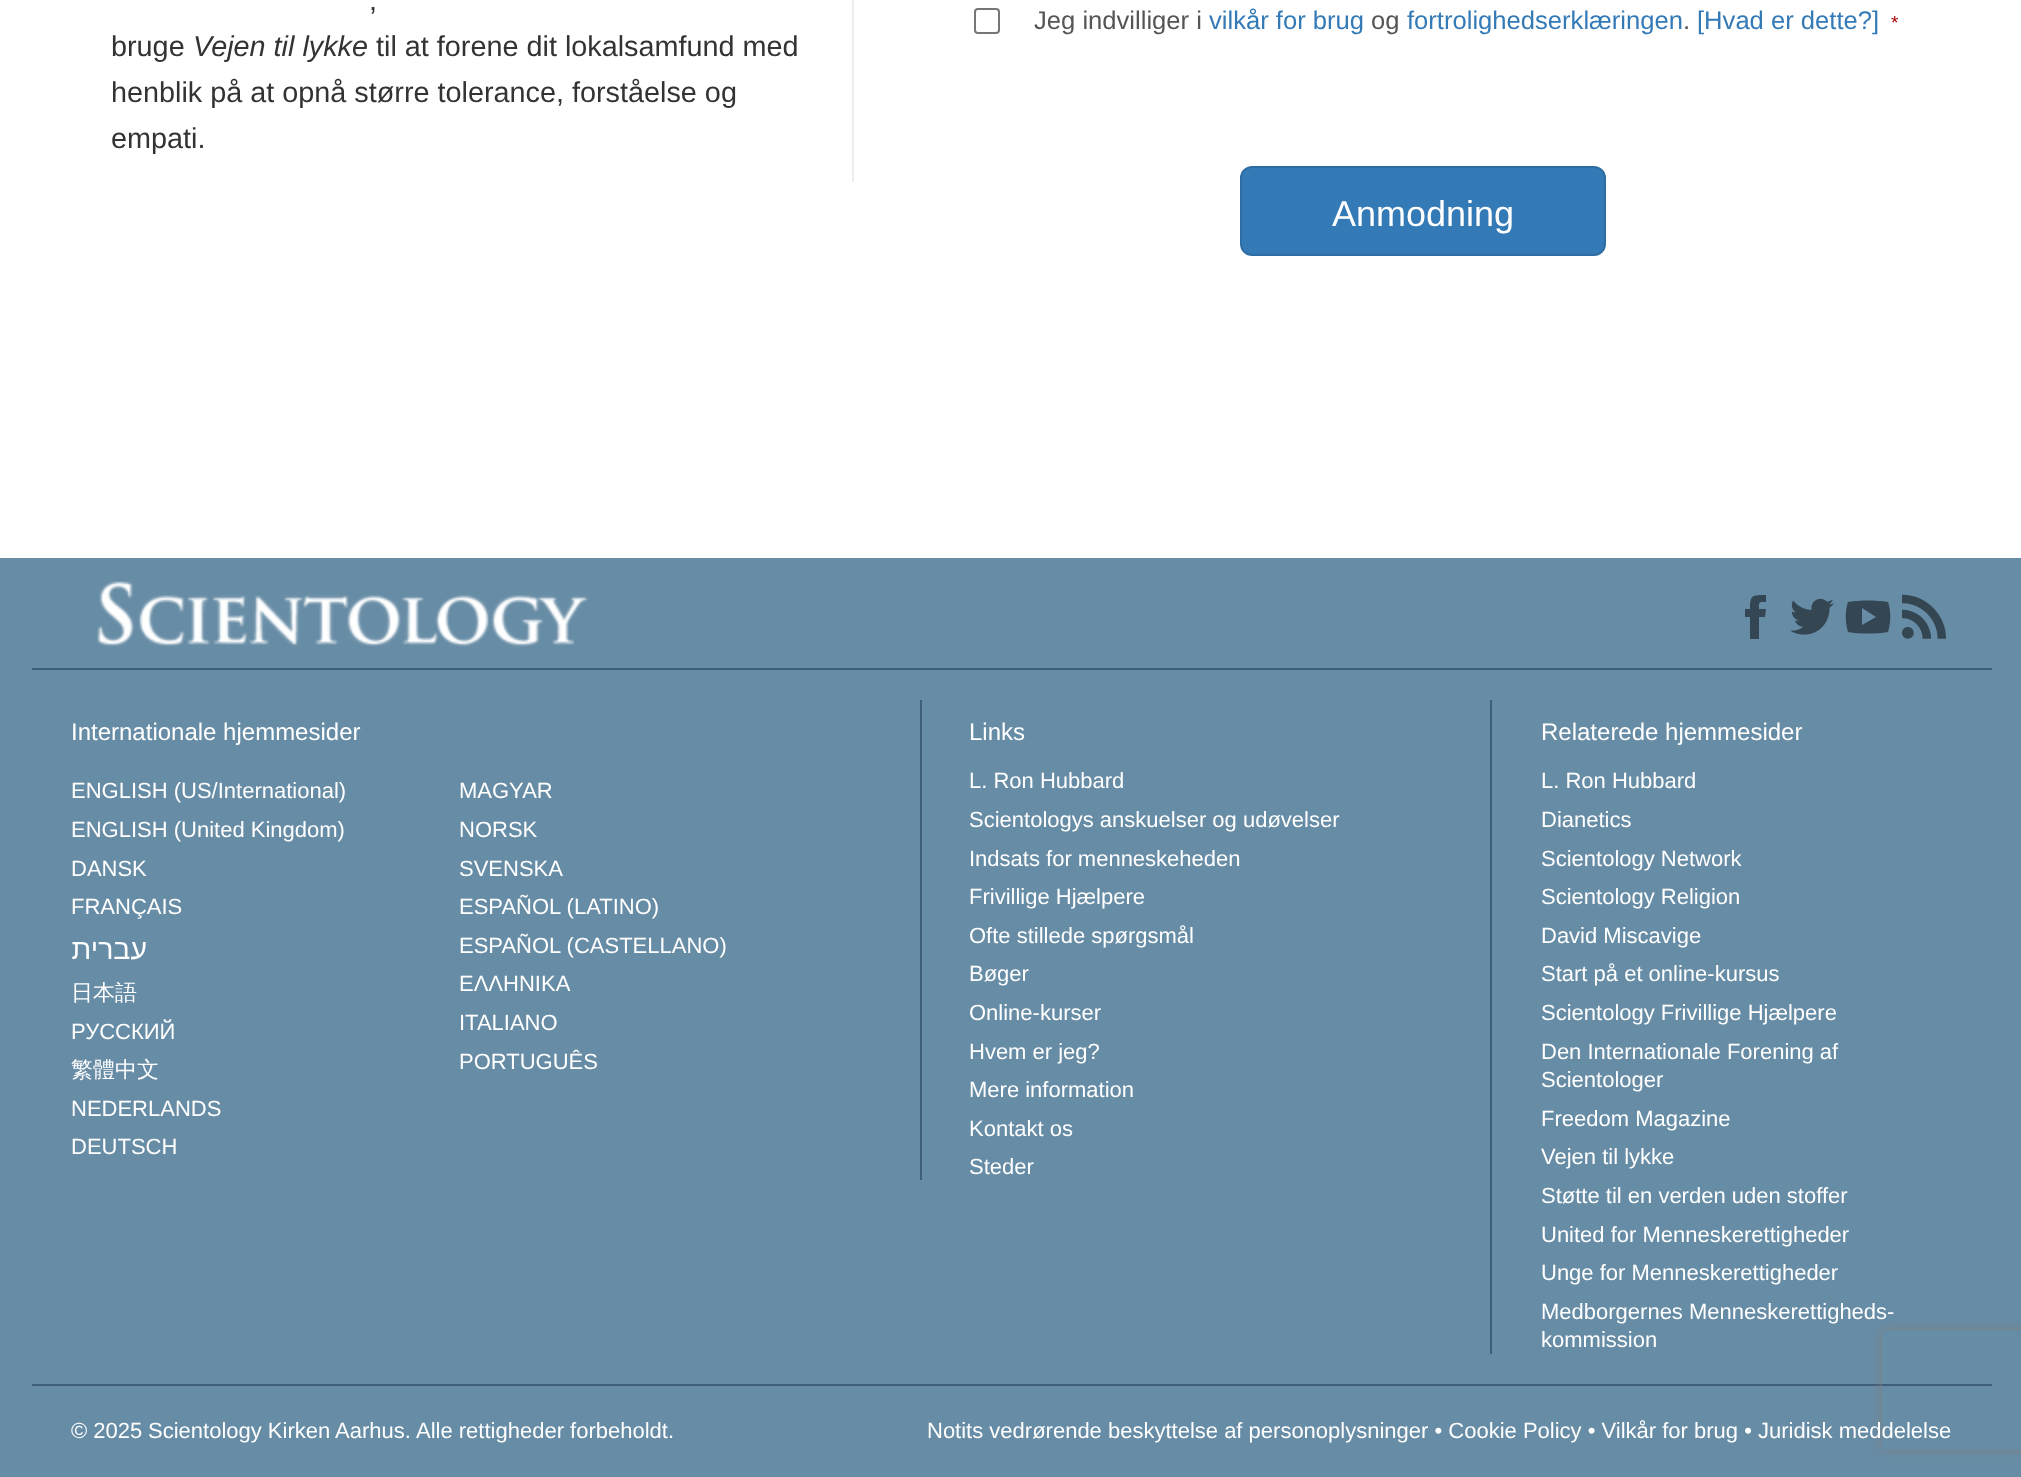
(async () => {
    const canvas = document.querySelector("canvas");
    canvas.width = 2021;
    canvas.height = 1477;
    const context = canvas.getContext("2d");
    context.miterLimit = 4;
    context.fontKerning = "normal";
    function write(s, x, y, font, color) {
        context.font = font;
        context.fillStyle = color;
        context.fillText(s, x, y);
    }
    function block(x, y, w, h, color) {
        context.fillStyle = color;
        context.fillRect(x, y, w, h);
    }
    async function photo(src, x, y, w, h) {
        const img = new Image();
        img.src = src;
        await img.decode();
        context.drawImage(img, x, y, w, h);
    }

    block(0, 0, 2021, 1477, "rgb(255, 255, 255)");
    block(852, 0, 2, 182, "rgb(238, 238, 238)");
    write(",", 369, 10, "28.8px Liberation Sans", "rgb(51, 51, 51)");
    write("bruge", 111, 56, "28.8px Liberation Sans", "rgb(51, 51, 51)");
    write("Vejen til lykke", 193, 56, "italic 28.8px Liberation Sans", "rgb(51, 51, 51)");
    write("til at forene dit lokalsamfund med", 376, 56, "28.8px Liberation Sans", "rgb(51, 51, 51)");
    write("henblik på at opnå større tolerance, forståelse og", 111, 102, "28.8px Liberation Sans", "rgb(51, 51, 51)");
    write("empati.", 111, 148, "28.8px Liberation Sans", "rgb(51, 51, 51)");
    context.beginPath();
    context.roundRect(975, 9, 24, 24, 3);
    context.strokeStyle = "rgb(118, 118, 118)";
    context.lineWidth = 2;
    context.stroke();
    write("Jeg indvilliger i", 1034, 29, "25.6px Liberation Sans", "rgb(85, 85, 85)");
    write("vilkår for brug", 1209, 29, "25.6px Liberation Sans", "rgb(51, 122, 183)");
    write("og", 1371, 29, "25.6px Liberation Sans", "rgb(85, 85, 85)");
    write("fortrolighedserklæringen", 1407, 29, "25.6px Liberation Sans", "rgb(51, 122, 183)");
    write("[Hvad er dette?]", 1697, 29, "25.6px Liberation Sans", "rgb(51, 122, 183)");
    write("*", 1891, 29, "19px Liberation Sans", "rgb(170, 0, 0)");
    write(".", 1683, 29, "25.6px Liberation Sans", "rgb(85, 85, 85)");
    context.fillStyle = "rgb(51, 122, 183)";
    context.beginPath();
    context.roundRect(1241, 167, 364, 88, 11);
    context.fill();
    context.strokeStyle = "rgb(46, 109, 164)";
    context.stroke();
    write("Anmodning", 1332, 226, "36px Liberation Sans", "rgb(255, 255, 255)");
    block(0, 558, 2021, 919, "rgb(103, 140, 165)");
    block(32, 1384, 1960, 2, "rgb(64, 93, 123)");
    context.save();
    context.beginPath();
    context.moveTo(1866, 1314);
    context.lineTo(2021, 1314);
    context.lineTo(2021, 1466);
    context.lineTo(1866, 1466);
    context.closePath();
    context.moveTo(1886, 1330);
    context.lineTo(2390, 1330);
    context.bezierCurveTo(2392, 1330, 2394, 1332, 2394, 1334);
    context.lineTo(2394, 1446);
    context.bezierCurveTo(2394, 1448, 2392, 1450, 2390, 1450);
    context.lineTo(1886, 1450);
    context.bezierCurveTo(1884, 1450, 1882, 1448, 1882, 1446);
    context.lineTo(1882, 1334);
    context.bezierCurveTo(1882, 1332, 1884, 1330, 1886, 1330);
    context.closePath();
    context.clip("evenodd");
    context.fillStyle = "rgb(128, 128, 128)";
    context.filter = "blur(5px)";
    context.beginPath();
    context.roundRect(1882, 1330, 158, 120, 4);
    context.fill();
    context.filter = "none";
    context.restore();
    await photo("media/1.png", 97, 581, 492, 66);
    context.fillStyle = "rgb(52, 70, 83)";
    context.beginPath();
    context.moveTo(1759, 639);
    context.lineTo(1750, 639);
    context.lineTo(1750, 617);
    context.lineTo(1745, 617);
    context.lineTo(1745, 609);
    context.lineTo(1750, 609);
    context.bezierCurveTo(1750, 595, 1752, 595, 1766, 595);
    context.lineTo(1766, 602);
    context.bezierCurveTo(1758, 602, 1759, 602, 1759, 609);
    context.lineTo(1766, 609);
    context.lineTo(1765, 617);
    context.lineTo(1759, 617);
    context.closePath();
    context.fill();
    await photo("media/2.png", 1790, 598, 44, 37);
    context.beginPath();
    context.moveTo(1888, 602);
    context.bezierCurveTo(1875, 600, 1861, 600, 1848, 602);
    context.bezierCurveTo(1845, 611, 1845, 622, 1848, 632);
    context.bezierCurveTo(1861, 634, 1875, 634, 1888, 632);
    context.bezierCurveTo(1891, 622, 1891, 611, 1888, 602);
    context.closePath();
    context.moveTo(1862, 625);
    context.lineTo(1862, 608);
    context.lineTo(1876, 617);
    context.closePath();
    context.fill();
    await photo("media/3.png", 1902, 594, 44, 45);
    block(32, 668, 1960, 2, "rgb(64, 93, 123)");
    write("Internationale hjemmesider", 71, 740, "24px Liberation Sans", "rgb(255, 255, 255)");
    write("ENGLISH (US/International)", 71, 798, "22px Liberation Sans", "rgb(255, 255, 255)");
    write("ENGLISH (United Kingdom)", 71, 837, "22px Liberation Sans", "rgb(255, 255, 255)");
    write("DANSK", 71, 876, "22px Liberation Sans", "rgb(255, 255, 255)");
    write("FRANÇAIS", 71, 914, "22px Liberation Sans", "rgb(255, 255, 255)");
    context.direction = "rtl";
    write("עברית", 147, 959, "28.5px Liberation Sans", "rgb(255, 255, 255)");
    context.direction = "ltr";
    write("日本語", 71, 1000, "500 22px WenQuanYi Zen Hei", "rgb(255, 255, 255)");
    write("РУССКИЙ", 71, 1039, "22px Liberation Sans", "rgb(255, 255, 255)");
    write("繁體中文", 71, 1077, "500 22px WenQuanYi Zen Hei", "rgb(255, 255, 255)");
    write("NEDERLANDS", 71, 1116, "22px Liberation Sans", "rgb(255, 255, 255)");
    write("DEUTSCH", 71, 1154, "22px Liberation Sans", "rgb(255, 255, 255)");
    write("MAGYAR", 459, 798, "22px Liberation Sans", "rgb(255, 255, 255)");
    write("NORSK", 459, 837, "22px Liberation Sans", "rgb(255, 255, 255)");
    write("SVENSKA", 459, 876, "22px Liberation Sans", "rgb(255, 255, 255)");
    write("ESPAÑOL (LATINO)", 459, 914, "22px Liberation Sans", "rgb(255, 255, 255)");
    write("ESPAÑOL (CASTELLANO)", 459, 953, "22px Liberation Sans", "rgb(255, 255, 255)");
    write("ΕΛΛΗΝΙΚA", 459, 991, "22px Liberation Sans", "rgb(255, 255, 255)");
    write("ITALIANO", 459, 1030, "22px Liberation Sans", "rgb(255, 255, 255)");
    write("PORTUGUÊS", 459, 1069, "22px Liberation Sans", "rgb(255, 255, 255)");
    block(920, 700, 2, 480, "rgb(64, 93, 123)");
    write("Links", 969, 740, "24px Liberation Sans", "rgb(255, 255, 255)");
    write("L. Ron Hubbard", 969, 788, "22px Liberation Sans", "rgb(255, 255, 255)");
    write("Scientologys anskuelser og udøvelser", 969, 827, "22px Liberation Sans", "rgb(255, 255, 255)");
    write("Indsats for menneskeheden", 969, 866, "22px Liberation Sans", "rgb(255, 255, 255)");
    write("Frivillige Hjælpere", 969, 904, "22px Liberation Sans", "rgb(255, 255, 255)");
    write("Ofte stillede spørgsmål", 969, 943, "22px Liberation Sans", "rgb(255, 255, 255)");
    write("Bøger", 969, 981, "22px Liberation Sans", "rgb(255, 255, 255)");
    write("Online-kurser", 969, 1020, "22px Liberation Sans", "rgb(255, 255, 255)");
    write("Hvem er jeg?", 969, 1059, "22px Liberation Sans", "rgb(255, 255, 255)");
    write("Mere information", 969, 1097, "22px Liberation Sans", "rgb(255, 255, 255)");
    write("Kontakt os", 969, 1136, "22px Liberation Sans", "rgb(255, 255, 255)");
    write("Steder", 969, 1174, "22px Liberation Sans", "rgb(255, 255, 255)");
    block(1490, 700, 2, 654, "rgb(64, 93, 123)");
    write("Relaterede hjemmesider", 1541, 740, "24px Liberation Sans", "rgb(255, 255, 255)");
    write("L. Ron Hubbard", 1541, 788, "22px Liberation Sans", "rgb(255, 255, 255)");
    write("Dianetics", 1541, 827, "22px Liberation Sans", "rgb(255, 255, 255)");
    write("Scientology Network", 1541, 866, "22px Liberation Sans", "rgb(255, 255, 255)");
    write("Scientology Religion", 1541, 904, "22px Liberation Sans", "rgb(255, 255, 255)");
    write("David Miscavige", 1541, 943, "22px Liberation Sans", "rgb(255, 255, 255)");
    write("Start på et online-kursus", 1541, 981, "22px Liberation Sans", "rgb(255, 255, 255)");
    write("Scientology Frivillige Hjælpere", 1541, 1020, "22px Liberation Sans", "rgb(255, 255, 255)");
    write("Den Internationale Forening af", 1541, 1059, "22px Liberation Sans", "rgb(255, 255, 255)");
    write("Scientologer", 1541, 1087, "22px Liberation Sans", "rgb(255, 255, 255)");
    write("Freedom Magazine", 1541, 1126, "22px Liberation Sans", "rgb(255, 255, 255)");
    write("Vejen til lykke", 1541, 1164, "22px Liberation Sans", "rgb(255, 255, 255)");
    write("Støtte til en verden uden stoffer", 1541, 1203, "22px Liberation Sans", "rgb(255, 255, 255)");
    write("United for Menneskerettigheder", 1541, 1242, "22px Liberation Sans", "rgb(255, 255, 255)");
    write("Unge for Menneskerettigheder", 1541, 1280, "22px Liberation Sans", "rgb(255, 255, 255)");
    write("Medborgernes Menneskerettigheds-", 1541, 1319, "22px Liberation Sans", "rgb(255, 255, 255)");
    write("kommission", 1541, 1347, "22px Liberation Sans", "rgb(255, 255, 255)");
    write("© 2025", 71, 1438, "22px Liberation Sans", "rgb(255, 255, 255)");
    write("Scientology Kirken Aarhus.", 148, 1438, "22px Liberation Sans", "rgb(255, 255, 255)");
    write("Alle rettigheder forbeholdt.", 416, 1438, "22px Liberation Sans", "rgb(255, 255, 255)");
    write("Notits vedrørende beskyttelse af personoplysninger • Cookie Policy • Vilkår for brug • Juridisk meddelelse", 927, 1438, "22px Liberation Sans", "rgb(255, 255, 255)");
})();
